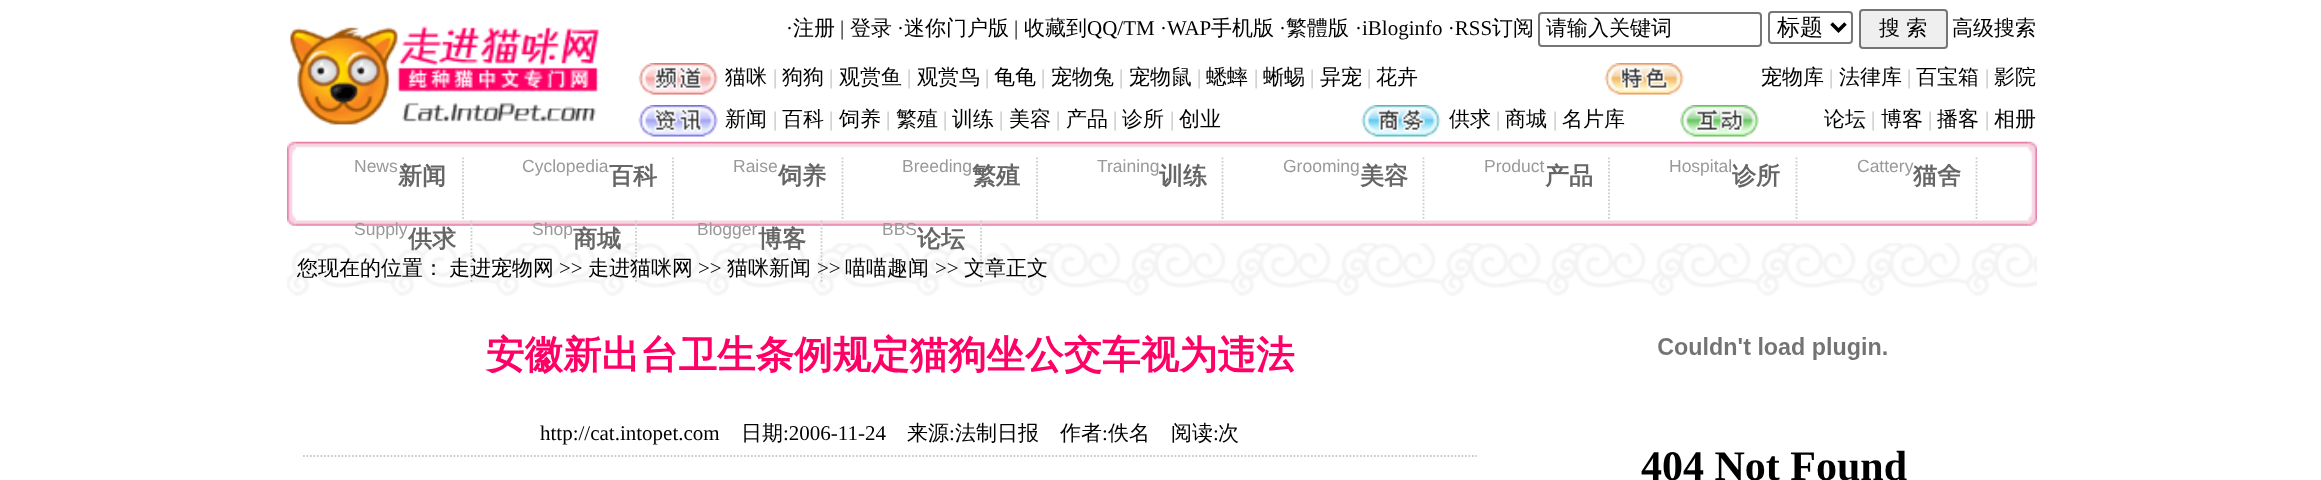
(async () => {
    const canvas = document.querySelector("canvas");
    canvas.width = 2321;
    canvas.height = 480;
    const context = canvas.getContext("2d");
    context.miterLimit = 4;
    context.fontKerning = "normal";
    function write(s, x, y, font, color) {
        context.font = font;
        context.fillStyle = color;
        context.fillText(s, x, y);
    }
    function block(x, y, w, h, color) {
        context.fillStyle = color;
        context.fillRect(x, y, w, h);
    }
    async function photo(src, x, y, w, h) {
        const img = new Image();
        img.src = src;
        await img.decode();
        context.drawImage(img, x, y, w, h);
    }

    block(0, 0, 2321, 480, "rgb(255, 255, 255)");
    await photo("media/1.png", 290, 25, 309, 100);
    write("·", 786, 35, "21px Liberation Serif", "rgb(0, 0, 0)");
    write("注册", 793, 35, "500 21px WenQuanYi Zen Hei", "rgb(0, 0, 0)");
    write("|", 840, 35, "21px Liberation Serif", "rgb(0, 0, 0)");
    write("登录", 850, 35, "500 21px WenQuanYi Zen Hei", "rgb(0, 0, 0)");
    write("·", 897, 35, "21px Liberation Serif", "rgb(0, 0, 0)");
    write("迷你门户版", 904, 35, "500 21px WenQuanYi Zen Hei", "rgb(0, 0, 0)");
    write("|", 1014, 35, "21px Liberation Serif", "rgb(0, 0, 0)");
    write("收藏到", 1024, 35, "500 21px WenQuanYi Zen Hei", "rgb(0, 0, 0)");
    write("QQ/TM ·WAP", 1087, 35, "21px Liberation Serif", "rgb(0, 0, 0)");
    write("手机版", 1211, 35, "500 21px WenQuanYi Zen Hei", "rgb(0, 0, 0)");
    write("·", 1279, 35, "21px Liberation Serif", "rgb(0, 0, 0)");
    write("繁體版", 1286, 35, "500 21px WenQuanYi Zen Hei", "rgb(0, 0, 0)");
    write("·iBloginfo ·RSS", 1355, 35, "21px Liberation Serif", "rgb(0, 0, 0)");
    write("订阅", 1492, 35, "500 21px WenQuanYi Zen Hei", "rgb(0, 0, 0)");
    context.beginPath();
    context.roundRect(1539, 13, 222, 33, 3);
    context.strokeStyle = "rgb(118, 118, 118)";
    context.lineWidth = 2;
    context.stroke();
    write("请输入关键词", 1546, 35, "500 21px WenQuanYi Zen Hei", "rgb(0, 0, 0)");
    context.beginPath();
    context.roundRect(1769, 12, 83, 31, 3);
    context.stroke();
    context.beginPath();
    context.moveTo(1831.5, 23.5);
    context.lineTo(1838.5, 30.5);
    context.lineTo(1845.5, 23.5);
    context.strokeStyle = "rgb(0, 0, 0)";
    context.lineWidth = 3.5;
    context.stroke();
    write("标题", 1777, 35, "500 23px WenQuanYi Zen Hei", "rgb(0, 0, 0)");
    context.fillStyle = "rgb(239, 239, 239)";
    context.beginPath();
    context.roundRect(1860, 10, 87, 38, 3);
    context.fill();
    context.strokeStyle = "rgb(118, 118, 118)";
    context.lineWidth = 2;
    context.stroke();
    write("搜 索", 1879, 35, "500 21px WenQuanYi Zen Hei", "rgb(0, 0, 0)");
    write("高级搜索", 1952, 35, "500 21px WenQuanYi Zen Hei", "rgb(0, 0, 0)");
    await photo("media/2.png", 638, 63, 80, 32);
    write("猫咪", 725, 84, "500 21px WenQuanYi Zen Hei", "rgb(0, 0, 0)");
    write("|", 773, 84, "21px Liberation Serif", "rgb(187, 187, 187)");
    write("狗狗", 782, 84, "500 21px WenQuanYi Zen Hei", "rgb(0, 0, 0)");
    write("|", 829, 84, "21px Liberation Serif", "rgb(187, 187, 187)");
    write("观赏鱼", 839, 84, "500 21px WenQuanYi Zen Hei", "rgb(0, 0, 0)");
    write("|", 907, 84, "21px Liberation Serif", "rgb(187, 187, 187)");
    write("观赏鸟", 917, 84, "500 21px WenQuanYi Zen Hei", "rgb(0, 0, 0)");
    write("|", 985, 84, "21px Liberation Serif", "rgb(187, 187, 187)");
    write("龟龟", 994, 84, "500 21px WenQuanYi Zen Hei", "rgb(0, 0, 0)");
    write("|", 1041, 84, "21px Liberation Serif", "rgb(187, 187, 187)");
    write("宠物兔", 1051, 84, "500 21px WenQuanYi Zen Hei", "rgb(0, 0, 0)");
    write("|", 1119, 84, "21px Liberation Serif", "rgb(187, 187, 187)");
    write("宠物鼠", 1129, 84, "500 21px WenQuanYi Zen Hei", "rgb(0, 0, 0)");
    write("|", 1197, 84, "21px Liberation Serif", "rgb(187, 187, 187)");
    write("蟋蟀", 1206, 84, "500 21px WenQuanYi Zen Hei", "rgb(0, 0, 0)");
    write("|", 1254, 84, "21px Liberation Serif", "rgb(187, 187, 187)");
    write("蜥蜴", 1263, 84, "500 21px WenQuanYi Zen Hei", "rgb(0, 0, 0)");
    write("|", 1310, 84, "21px Liberation Serif", "rgb(187, 187, 187)");
    write("异宠", 1320, 84, "500 21px WenQuanYi Zen Hei", "rgb(0, 0, 0)");
    write("|", 1367, 84, "21px Liberation Serif", "rgb(187, 187, 187)");
    write("花卉", 1376, 84, "500 21px WenQuanYi Zen Hei", "rgb(0, 0, 0)");
    await photo("media/3.png", 1604, 63, 80, 32);
    write("宠物库", 1761, 84, "500 21px WenQuanYi Zen Hei", "rgb(0, 0, 0)");
    write("|", 1829, 84, "21px Liberation Serif", "rgb(187, 187, 187)");
    write("法律库", 1839, 84, "500 21px WenQuanYi Zen Hei", "rgb(0, 0, 0)");
    write("|", 1907, 84, "21px Liberation Serif", "rgb(187, 187, 187)");
    write("百宝箱", 1916, 84, "500 21px WenQuanYi Zen Hei", "rgb(0, 0, 0)");
    write("|", 1985, 84, "21px Liberation Serif", "rgb(187, 187, 187)");
    write("影院", 1994, 84, "500 21px WenQuanYi Zen Hei", "rgb(0, 0, 0)");
    await photo("media/4.png", 638, 105, 80, 32);
    write("新闻", 725, 126, "500 21px WenQuanYi Zen Hei", "rgb(0, 0, 0)");
    write("|", 773, 126, "21px Liberation Serif", "rgb(187, 187, 187)");
    write("百科", 782, 126, "500 21px WenQuanYi Zen Hei", "rgb(0, 0, 0)");
    write("|", 829, 126, "21px Liberation Serif", "rgb(187, 187, 187)");
    write("饲养", 839, 126, "500 21px WenQuanYi Zen Hei", "rgb(0, 0, 0)");
    write("|", 886, 126, "21px Liberation Serif", "rgb(187, 187, 187)");
    write("繁殖", 896, 126, "500 21px WenQuanYi Zen Hei", "rgb(0, 0, 0)");
    write("|", 943, 126, "21px Liberation Serif", "rgb(187, 187, 187)");
    write("训练", 952, 126, "500 21px WenQuanYi Zen Hei", "rgb(0, 0, 0)");
    write("|", 999, 126, "21px Liberation Serif", "rgb(187, 187, 187)");
    write("美容", 1009, 126, "500 21px WenQuanYi Zen Hei", "rgb(0, 0, 0)");
    write("|", 1056, 126, "21px Liberation Serif", "rgb(187, 187, 187)");
    write("产品", 1066, 126, "500 21px WenQuanYi Zen Hei", "rgb(0, 0, 0)");
    write("|", 1113, 126, "21px Liberation Serif", "rgb(187, 187, 187)");
    write("诊所", 1122, 126, "500 21px WenQuanYi Zen Hei", "rgb(0, 0, 0)");
    write("|", 1170, 126, "21px Liberation Serif", "rgb(187, 187, 187)");
    write("创业", 1179, 126, "500 21px WenQuanYi Zen Hei", "rgb(0, 0, 0)");
    await photo("media/5.png", 1361, 105, 80, 32);
    write("供求", 1449, 126, "500 21px WenQuanYi Zen Hei", "rgb(0, 0, 0)");
    write("|", 1496, 126, "21px Liberation Serif", "rgb(187, 187, 187)");
    write("商城", 1505, 126, "500 21px WenQuanYi Zen Hei", "rgb(0, 0, 0)");
    write("|", 1553, 126, "21px Liberation Serif", "rgb(187, 187, 187)");
    write("名片库", 1562, 126, "500 21px WenQuanYi Zen Hei", "rgb(0, 0, 0)");
    await photo("media/6.png", 1680, 105, 79, 32);
    write("论坛", 1824, 126, "500 21px WenQuanYi Zen Hei", "rgb(0, 0, 0)");
    write("|", 1871, 126, "21px Liberation Serif", "rgb(187, 187, 187)");
    write("博客", 1881, 126, "500 21px WenQuanYi Zen Hei", "rgb(0, 0, 0)");
    write("|", 1928, 126, "21px Liberation Serif", "rgb(187, 187, 187)");
    write("播客", 1937, 126, "500 21px WenQuanYi Zen Hei", "rgb(0, 0, 0)");
    write("|", 1985, 126, "21px Liberation Serif", "rgb(187, 187, 187)");
    write("相册", 1994, 126, "500 21px WenQuanYi Zen Hei", "rgb(0, 0, 0)");
    await photo("media/8.png", 295, 141, 1734, 85);
    await photo("media/7.png", 287, 141, 9, 85);
    context.beginPath();
    context.moveTo(463, 157.5);
    context.lineTo(463, 220.5);
    context.strokeStyle = "rgb(204, 204, 204)";
    context.lineWidth = 1.8;
    context.setLineDash([1.75, 1.75]);
    context.stroke();
    write("News", 354, 172, "17.5px Liberation Sans", "rgb(153, 153, 153)");
    write("新闻", 398, 184, "bold 24px WenQuanYi Zen Hei", "rgb(102, 102, 102)");
    context.beginPath();
    context.moveTo(673, 157.5);
    context.lineTo(673, 220.5);
    context.stroke();
    write("Cyclopedia", 522, 172, "17.5px Liberation Sans", "rgb(153, 153, 153)");
    write("百科", 609, 184, "bold 24px WenQuanYi Zen Hei", "rgb(102, 102, 102)");
    context.beginPath();
    context.moveTo(842.5, 157.5);
    context.lineTo(842.5, 220.5);
    context.stroke();
    write("Raise", 733, 172, "17.5px Liberation Sans", "rgb(153, 153, 153)");
    write("饲养", 778, 184, "bold 24px WenQuanYi Zen Hei", "rgb(102, 102, 102)");
    context.beginPath();
    context.moveTo(1037, 157.5);
    context.lineTo(1037, 220.5);
    context.stroke();
    write("Breeding", 902, 172, "17.5px Liberation Sans", "rgb(153, 153, 153)");
    write("繁殖", 972, 184, "bold 24px WenQuanYi Zen Hei", "rgb(102, 102, 102)");
    context.beginPath();
    context.moveTo(1222.5, 157.5);
    context.lineTo(1222.5, 220.5);
    context.stroke();
    write("Training", 1097, 172, "17.5px Liberation Sans", "rgb(153, 153, 153)");
    write("训练", 1159, 184, "bold 24px WenQuanYi Zen Hei", "rgb(102, 102, 102)");
    context.beginPath();
    context.moveTo(1423.5, 157.5);
    context.lineTo(1423.5, 220.5);
    context.stroke();
    write("Grooming", 1283, 172, "17.5px Liberation Sans", "rgb(153, 153, 153)");
    write("美容", 1360, 184, "bold 24px WenQuanYi Zen Hei", "rgb(102, 102, 102)");
    context.beginPath();
    context.moveTo(1609, 157.5);
    context.lineTo(1609, 220.5);
    context.stroke();
    write("Product", 1484, 172, "17.5px Liberation Sans", "rgb(153, 153, 153)");
    write("产品", 1545, 184, "bold 24px WenQuanYi Zen Hei", "rgb(102, 102, 102)");
    context.beginPath();
    context.moveTo(1796.5, 157.5);
    context.lineTo(1796.5, 220.5);
    context.stroke();
    write("Hospital", 1669, 172, "17.5px Liberation Sans", "rgb(153, 153, 153)");
    write("诊所", 1732, 184, "bold 24px WenQuanYi Zen Hei", "rgb(102, 102, 102)");
    context.beginPath();
    context.moveTo(1976.5, 157.5);
    context.lineTo(1976.5, 220.5);
    context.stroke();
    write("Cattery", 1857, 172, "17.5px Liberation Sans", "rgb(153, 153, 153)");
    write("猫舍", 1913, 184, "bold 24px WenQuanYi Zen Hei", "rgb(102, 102, 102)");
    await photo("media/10.png", 287, 243, 1750, 53);
    context.beginPath();
    context.moveTo(471.5, 220.5);
    context.lineTo(471.5, 283.5);
    context.stroke();
    write("Supply", 354, 235, "17.5px Liberation Sans", "rgb(153, 153, 153)");
    write("供求", 408, 247, "bold 24px WenQuanYi Zen Hei", "rgb(102, 102, 102)");
    context.beginPath();
    context.moveTo(636, 220.5);
    context.lineTo(636, 283.5);
    context.stroke();
    write("Shop", 532, 235, "17.5px Liberation Sans", "rgb(153, 153, 153)");
    write("商城", 573, 247, "bold 24px WenQuanYi Zen Hei", "rgb(102, 102, 102)");
    context.beginPath();
    context.moveTo(821.5, 220.5);
    context.lineTo(821.5, 283.5);
    context.stroke();
    write("Blogger", 697, 235, "17.5px Liberation Sans", "rgb(153, 153, 153)");
    write("博客", 758, 247, "bold 24px WenQuanYi Zen Hei", "rgb(102, 102, 102)");
    context.beginPath();
    context.moveTo(981, 220.5);
    context.lineTo(981, 283.5);
    context.stroke();
    write("BBS", 882, 235, "17.5px Liberation Sans", "rgb(153, 153, 153)");
    write("论坛", 917, 247, "bold 24px WenQuanYi Zen Hei", "rgb(102, 102, 102)");
    await photo("media/9.png", 2028, 141, 9, 85);
    write("您现在的位置：", 297, 275, "500 21px WenQuanYi Zen Hei", "rgb(0, 0, 0)");
    write("走进宠物网", 449, 275, "500 21px WenQuanYi Zen Hei", "rgb(0, 0, 0)");
    write(">>", 559, 275, "21px Liberation Serif", "rgb(0, 0, 0)");
    write("走进猫咪网", 588, 275, "500 21px WenQuanYi Zen Hei", "rgb(0, 0, 0)");
    write(">>", 698, 275, "21px Liberation Serif", "rgb(0, 0, 0)");
    write("猫咪新闻", 727, 275, "500 21px WenQuanYi Zen Hei", "rgb(0, 0, 0)");
    write(">>", 817, 275, "21px Liberation Serif", "rgb(0, 0, 0)");
    write("喵喵趣闻", 845, 275, "500 21px WenQuanYi Zen Hei", "rgb(0, 0, 0)");
    write(">>", 935, 275, "21px Liberation Serif", "rgb(0, 0, 0)");
    write("文章正文", 964, 275, "500 21px WenQuanYi Zen Hei", "rgb(0, 0, 0)");
    write("安徽新出台卫生条例规定猫狗坐公交车视为违法", 486, 368, "bold 38.5px WenQuanYi Zen Hei", "rgb(255, 0, 102)");
    context.beginPath();
    context.moveTo(303, 456);
    context.lineTo(1477, 456);
    context.stroke();
    write("http://cat.intopet.com", 540, 440, "21px Liberation Serif", "rgb(0, 0, 0)");
    write("日期", 741, 440, "500 21px WenQuanYi Zen Hei", "rgb(0, 0, 0)");
    write(":2006-11-24", 783, 440, "21px Liberation Serif", "rgb(0, 0, 0)");
    write("来源", 907, 440, "500 21px WenQuanYi Zen Hei", "rgb(0, 0, 0)");
    write(":", 949, 440, "21px Liberation Serif", "rgb(0, 0, 0)");
    write("法制日报　作者", 955, 440, "500 21px WenQuanYi Zen Hei", "rgb(0, 0, 0)");
    write(":", 1102, 440, "21px Liberation Serif", "rgb(0, 0, 0)");
    write("佚名　阅读", 1108, 440, "500 21px WenQuanYi Zen Hei", "rgb(0, 0, 0)");
    write(":", 1213, 440, "21px Liberation Serif", "rgb(0, 0, 0)");
    write("次", 1218, 440, "500 21px WenQuanYi Zen Hei", "rgb(0, 0, 0)");
    await photo("media/11.png", 1658, 337, 229, 23);
    write("404 Not Found", 1641, 480, "bold 42px Liberation Serif", "rgb(0, 0, 0)");
})();
